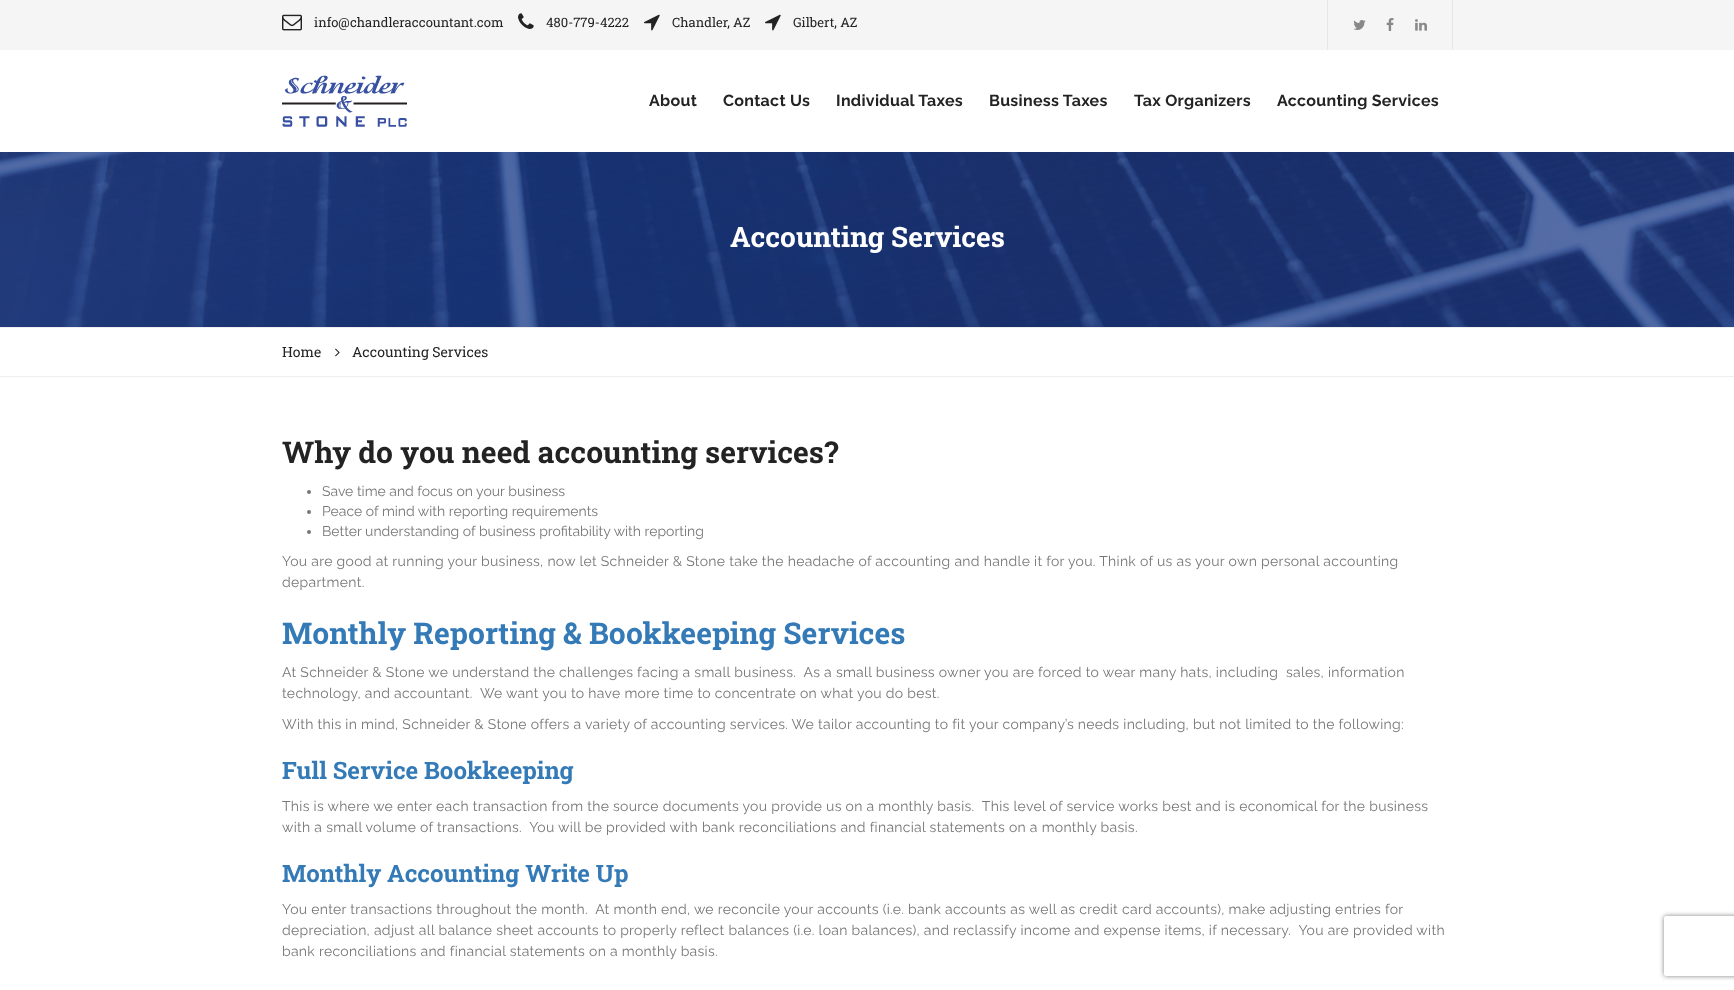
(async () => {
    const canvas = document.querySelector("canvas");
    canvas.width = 1734;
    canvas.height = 990;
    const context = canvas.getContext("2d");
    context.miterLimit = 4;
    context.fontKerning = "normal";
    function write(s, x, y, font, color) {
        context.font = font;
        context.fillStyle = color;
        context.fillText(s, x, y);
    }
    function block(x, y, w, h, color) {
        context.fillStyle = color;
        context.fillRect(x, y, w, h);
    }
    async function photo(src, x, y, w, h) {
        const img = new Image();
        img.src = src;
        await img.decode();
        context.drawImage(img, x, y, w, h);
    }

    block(0, 0, 1734, 990, "rgb(255, 255, 255)");
    block(0, 0, 1734, 50, "rgb(245, 245, 245)");
    await photo("media/1.png", 282, 14, 20, 17);
    write("info@chandleraccountant.com", 314, 27, "13px Roboto Slab", "rgb(35, 35, 35)");
    await photo("media/2.png", 518, 13, 16, 16);
    write("480-779-4222", 546, 27, "13px Roboto Slab", "rgb(35, 35, 35)");
    await photo("media/3.png", 644, 14, 16, 17);
    write("Chandler, AZ", 672, 27, "13px Roboto Slab", "rgb(35, 35, 35)");
    await photo("media/3.png", 765, 14, 16, 17);
    write("Gilbert, AZ", 793, 27, "13px Roboto Slab", "rgb(35, 35, 35)");
    block(1452, 0, 1, 50, "rgb(231, 231, 231)");
    block(1327, 0, 1, 50, "rgb(231, 231, 231)");
    await photo("media/4.png", 1353, 20, 13, 10);
    await photo("media/5.png", 1386, 18, 8, 13);
    await photo("media/6.png", 1415, 19, 12, 12);
    await photo("media/7.png", 282, 75, 125, 52);
    context.letterSpacing = "0.3px";
    write("About", 649, 106, "bold 16px Raleway", "rgb(35, 35, 35)");
    write("Contact Us", 723, 106, "bold 16px Raleway", "rgb(35, 35, 35)");
    write("Individual Taxes", 836, 106, "bold 16px Raleway", "rgb(35, 35, 35)");
    write("Business Taxes", 989, 106, "bold 16px Raleway", "rgb(35, 35, 35)");
    write("Tax Organizers", 1134, 106, "bold 16px Raleway", "rgb(35, 35, 35)");
    write("Accounting Services", 1277, 106, "bold 16px Raleway", "rgb(35, 35, 35)");
    await photo("media/8.png", 0, 152, 1734, 175);
    context.letterSpacing = "0px";
    write("Accounting Services", 730, 247, "bold 28px Roboto Slab", "rgb(255, 255, 255)");
    block(0, 327, 1734, 1, "rgb(238, 238, 238)");
    block(0, 376, 1734, 1, "rgb(238, 238, 238)");
    write("Home", 282, 357, "14px Roboto Slab", "rgb(35, 35, 35)");
    await photo("media/9.png", 335, 348, 5, 9);
    write("Accounting Services", 352, 357, "14px Roboto Slab", "rgb(35, 35, 35)");
    write("Why do you need accounting services?", 282, 463, "bold 30px Roboto Slab", "rgb(35, 35, 35)");
    context.fillStyle = "rgb(119, 119, 119)";
    context.beginPath();
    context.arc(309, 492, 2, 0, Math.PI * 2);
    context.fill();
    write("Save time and focus on your business", 322, 496, "14px Raleway", "rgb(119, 119, 119)");
    context.beginPath();
    context.arc(309, 512, 2, 0, Math.PI * 2);
    context.fill();
    write("Peace of mind with reporting requirements", 322, 516, "14px Raleway", "rgb(119, 119, 119)");
    context.beginPath();
    context.arc(309, 532, 2, 0, Math.PI * 2);
    context.fill();
    write("Better understanding of business profitability with reporting", 322, 536, "14px Raleway", "rgb(119, 119, 119)");
    context.letterSpacing = "0.3px";
    write("You are good at running your business, now let Schneider & Stone take the headache of accounting and handle it for you. Think of us as your own personal accounting", 282, 566, "14px Raleway", "rgb(119, 119, 119)");
    write("department.", 282, 587, "14px Raleway", "rgb(119, 119, 119)");
    context.letterSpacing = "0px";
    write("Monthly Reporting & Bookkeeping Services", 282, 644, "bold 30px Roboto Slab", "rgb(51, 122, 183)");
    context.letterSpacing = "0.3px";
    write("At Schneider & Stone we understand the challenges facing a small business.  As a small business owner you are forced to wear many hats, including  sales, information", 282, 677, "14px Raleway", "rgb(119, 119, 119)");
    write("technology, and accountant.  We want you to have more time to concentrate on what you do best.", 282, 698, "14px Raleway", "rgb(119, 119, 119)");
    write("With this in mind, Schneider & Stone offers a variety of accounting services. We tailor accounting to fit your company’s needs including, but not limited to the following:", 282, 729, "14px Raleway", "rgb(119, 119, 119)");
    context.letterSpacing = "0px";
    write("Full Service Bookkeeping", 282, 779, "bold 24px Roboto Slab", "rgb(51, 122, 183)");
    context.letterSpacing = "0.3px";
    write("This is where we enter each transaction from the source documents you provide us on a monthly basis.  This level of service works best and is economical for the business", 282, 811, "14px Raleway", "rgb(119, 119, 119)");
    write("with a small volume of transactions.  You will be provided with bank reconciliations and financial statements on a monthly basis.", 282, 832, "14px Raleway", "rgb(119, 119, 119)");
    context.letterSpacing = "0px";
    write("Monthly Accounting Write Up", 282, 882, "bold 24px Roboto Slab", "rgb(51, 122, 183)");
    context.letterSpacing = "0.3px";
    write("You enter transactions throughout the month.  At month end, we reconcile your accounts (i.e. bank accounts as well as credit card accounts), make adjusting entries for", 282, 914, "14px Raleway", "rgb(119, 119, 119)");
    write("depreciation, adjust all balance sheet accounts to properly reflect balances (i.e. loan balances), and reclassify income and expense items, if necessary.  You are provided with", 282, 935, "14px Raleway", "rgb(119, 119, 119)");
    write("bank reconciliations and financial statements on a monthly basis.", 282, 956, "14px Raleway", "rgb(119, 119, 119)");
    context.save();
    context.beginPath();
    context.moveTo(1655, 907);
    context.lineTo(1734, 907);
    context.lineTo(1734, 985);
    context.lineTo(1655, 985);
    context.closePath();
    context.moveTo(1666, 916);
    context.lineTo(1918, 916);
    context.bezierCurveTo(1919, 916, 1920, 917, 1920, 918);
    context.lineTo(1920, 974);
    context.bezierCurveTo(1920, 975, 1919, 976, 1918, 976);
    context.lineTo(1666, 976);
    context.bezierCurveTo(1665, 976, 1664, 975, 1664, 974);
    context.lineTo(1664, 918);
    context.bezierCurveTo(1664, 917, 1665, 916, 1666, 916);
    context.closePath();
    context.clip("evenodd");
    context.fillStyle = "rgb(128, 128, 128)";
    context.filter = "blur(2.5px)";
    context.beginPath();
    context.roundRect(1664, 916, 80, 60, 2);
    context.fill();
    context.filter = "none";
    context.restore();
})();
